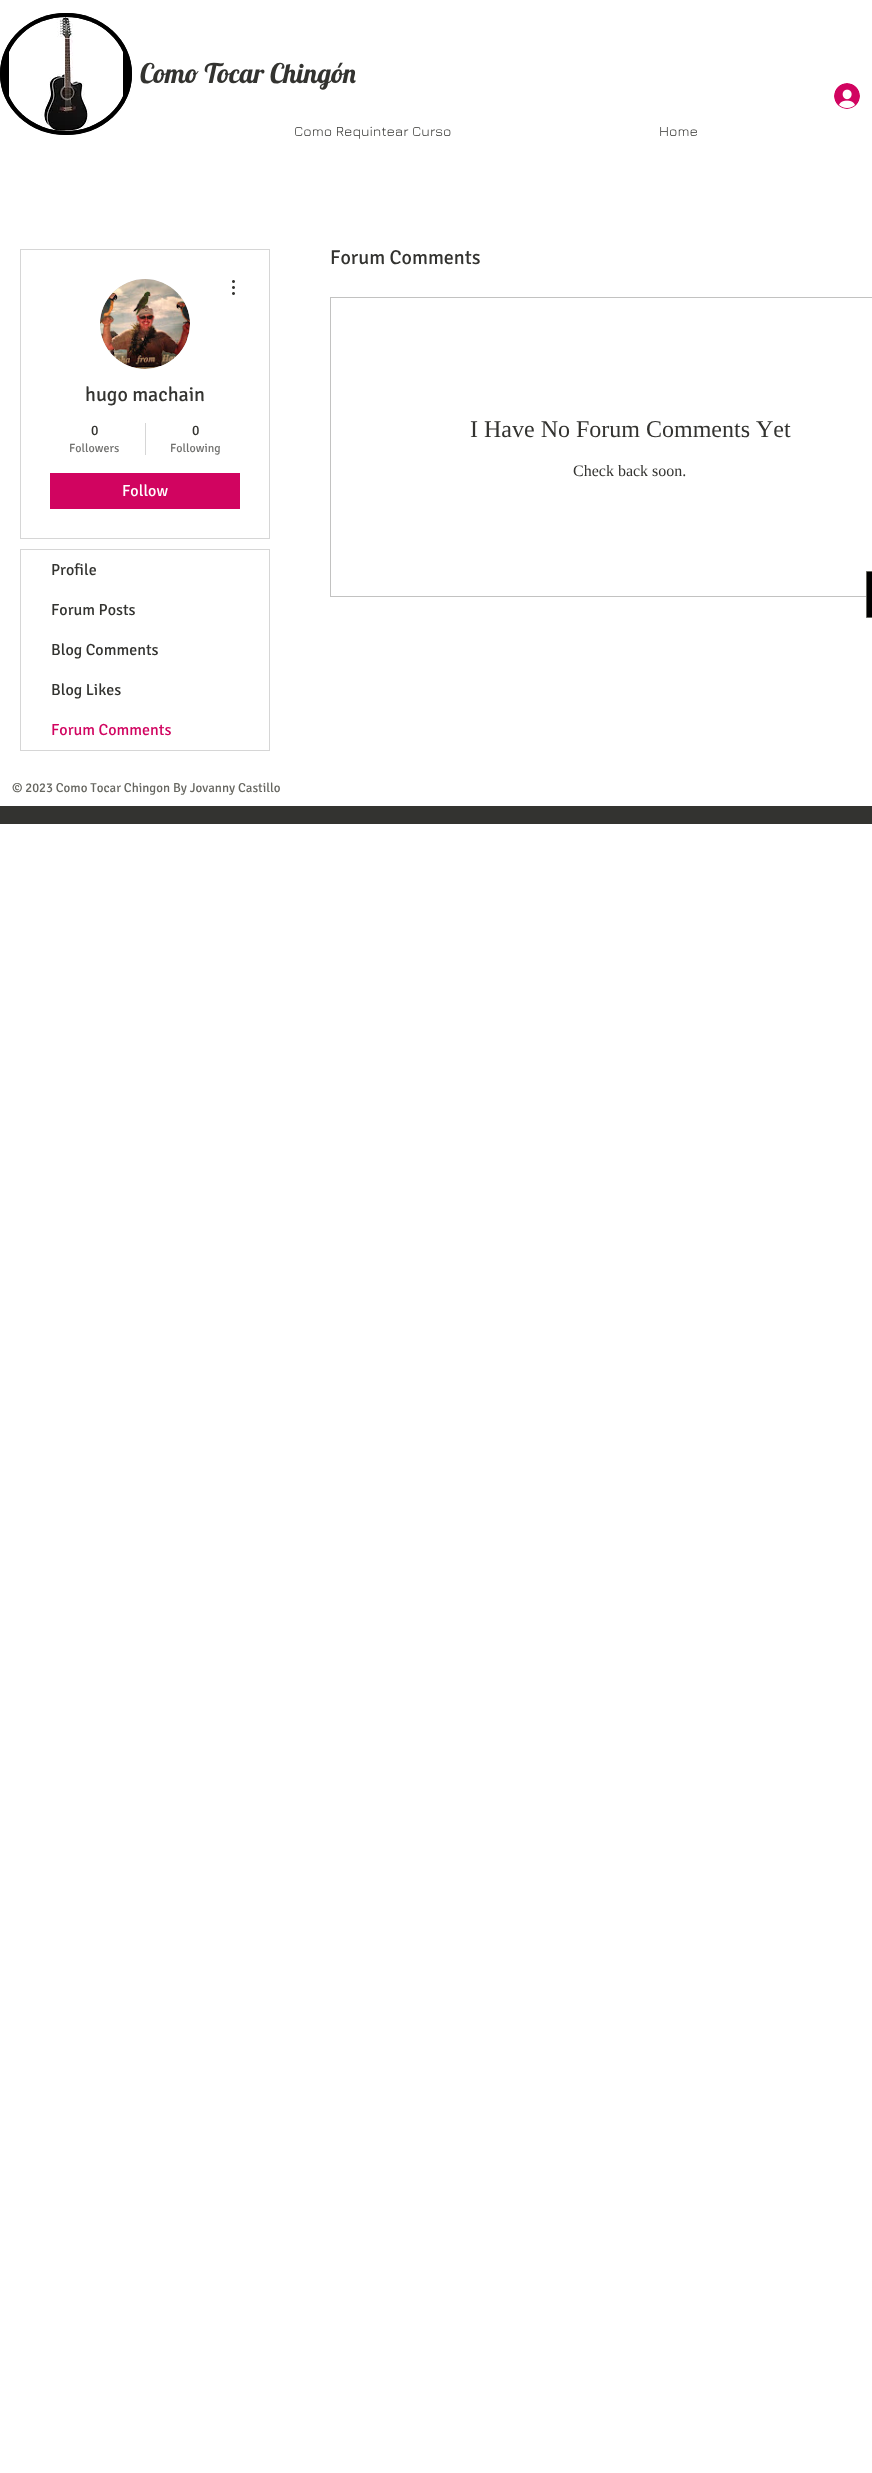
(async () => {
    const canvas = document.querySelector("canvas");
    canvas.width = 872;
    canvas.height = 2473;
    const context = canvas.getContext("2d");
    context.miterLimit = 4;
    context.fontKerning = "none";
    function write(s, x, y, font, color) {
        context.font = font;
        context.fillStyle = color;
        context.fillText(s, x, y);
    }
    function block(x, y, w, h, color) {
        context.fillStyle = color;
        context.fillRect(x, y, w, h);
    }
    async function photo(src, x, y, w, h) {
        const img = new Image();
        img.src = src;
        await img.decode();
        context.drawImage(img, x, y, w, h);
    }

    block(0, 0, 872, 2473, "rgb(255, 255, 255)");
    context.fillStyle = "rgb(0, 0, 0)";
    context.beginPath();
    context.ellipse(66, 74, 66, 61, 0, 0, Math.PI * 2);
    context.fill();
    context.beginPath();
    context.moveTo(66, 15);
    context.bezierCurveTo(101.5, 15, 130, 41.5, 130, 74);
    context.bezierCurveTo(130, 106.5, 101.5, 133, 66, 133);
    context.bezierCurveTo(30.5, 133, 2, 106.5, 2, 74);
    context.bezierCurveTo(2, 41.5, 30.5, 15, 66, 15);
    context.closePath();
    context.strokeStyle = "rgb(0, 0, 0)";
    context.lineWidth = 4;
    context.stroke();
    await photo("media/1.png", 9, 17, 114, 114);
    write("Como Tocar Chingón", 140, 83, "27px Lobster", "rgb(51, 51, 48)");
    await photo("media/2.png", 834, 83, 26, 26);
    write("Como Requintear Curso", 294, 136, "14px Jura", "rgb(51, 51, 48)");
    write("Home", 659, 136, "14px Jura", "rgb(51, 51, 48)");
    context.strokeStyle = "rgb(214, 214, 214)";
    context.lineWidth = 1;
    context.strokeRect(20.5, 249.5, 249, 289);
    context.fillStyle = "rgb(216, 216, 216)";
    context.beginPath();
    context.arc(145, 324, 45, 0, Math.PI * 2);
    context.fill();
    await photo("media/3.png", 100, 279, 90, 90);
    await photo("media/4.png", 232, 280, 3, 15);
    write("hugo machain", 85, 401, "20px Signika", "rgb(51, 51, 48)");
    write("0", 91, 435, "14px Signika", "rgb(51, 51, 48)");
    write("Followers", 69, 452, "12px Signika", "rgb(112, 112, 110)");
    block(145, 423, 1, 32, "rgb(214, 214, 214)");
    write("0", 192, 435, "14px Signika", "rgb(51, 51, 48)");
    write("Following", 170, 452, "12px Signika", "rgb(112, 112, 110)");
    block(50, 473, 190, 36, "rgb(209, 4, 96)");
    write("Follow", 122, 496, "16px Signika", "rgb(255, 255, 255)");
    context.strokeRect(20.5, 549.5, 249, 201);
    write("Profile", 51, 575, "16px Signika", "rgb(51, 51, 48)");
    write("Forum Posts", 51, 615, "16px Signika", "rgb(51, 51, 48)");
    write("Blog Comments", 51, 655, "16px Signika", "rgb(51, 51, 48)");
    write("Blog Likes", 51, 695, "16px Signika", "rgb(51, 51, 48)");
    write("Forum Comments", 51, 735, "16px Signika", "rgb(209, 4, 96)");
    write("Forum Comments", 330, 264, "20px Signika", "rgb(51, 51, 48)");
    context.strokeStyle = "rgb(194, 194, 193)";
    context.strokeRect(330.5, 297.5, 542, 299);
    write("I Have No Forum Comments Yet", 470, 437, "24px Liberation Serif", "rgb(51, 51, 48)");
    write("Check back soon.", 573, 476, "16px Liberation Serif", "rgb(51, 51, 48)");
    context.fillStyle = "rgb(0, 0, 0)";
    context.beginPath();
    context.rect(866.5, 571.5, 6, 46);
    context.fill();
    context.strokeStyle = "rgb(102, 102, 96)";
    context.stroke();
    write("© 2023 Como Tocar Chingon By Jovanny Castillo", 12, 792, "13px Signika", "rgb(102, 102, 96)");
    block(0, 806, 872, 18, "rgb(51, 51, 48)");
})();
